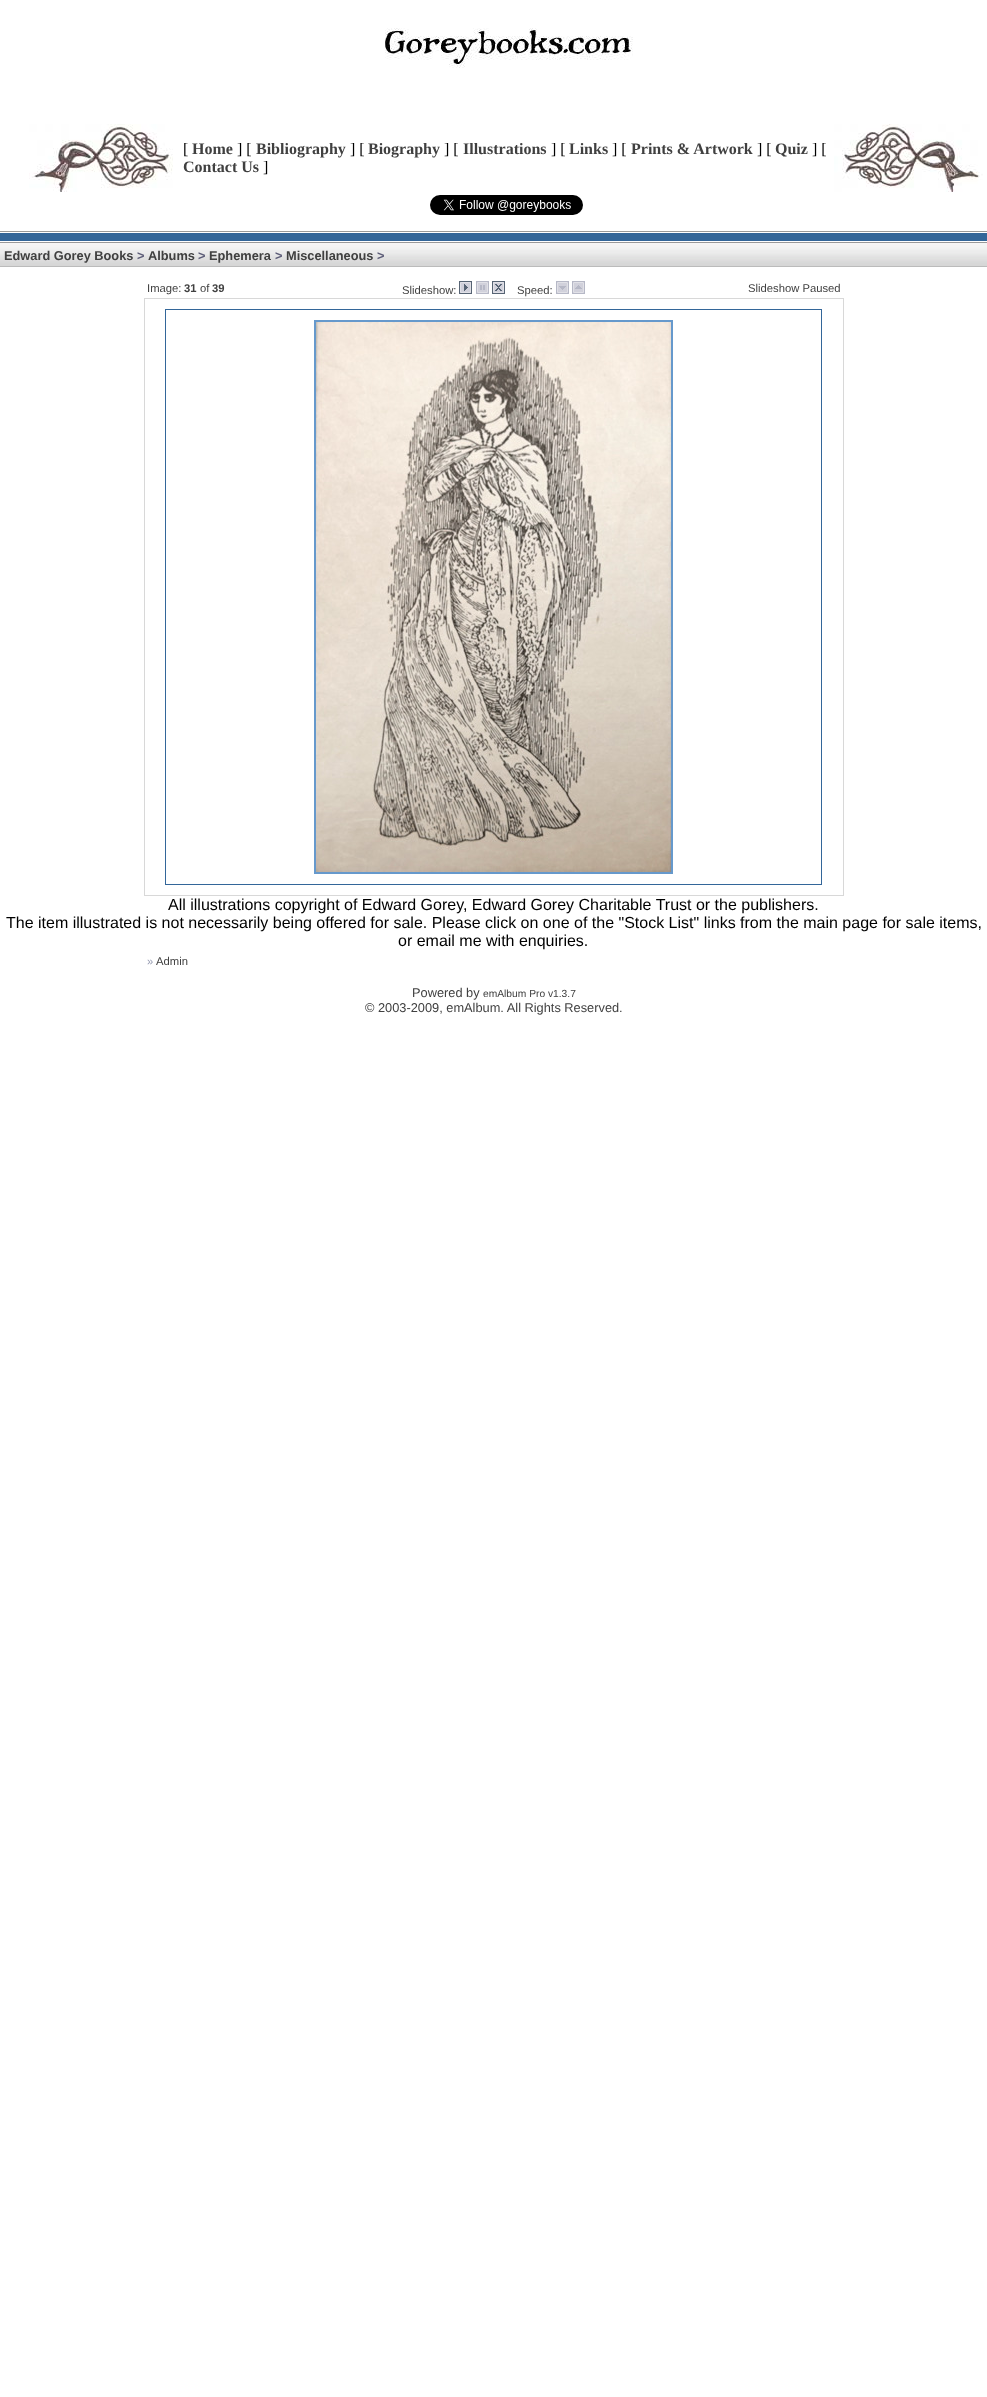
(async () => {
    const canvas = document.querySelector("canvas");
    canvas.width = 987;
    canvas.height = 2397;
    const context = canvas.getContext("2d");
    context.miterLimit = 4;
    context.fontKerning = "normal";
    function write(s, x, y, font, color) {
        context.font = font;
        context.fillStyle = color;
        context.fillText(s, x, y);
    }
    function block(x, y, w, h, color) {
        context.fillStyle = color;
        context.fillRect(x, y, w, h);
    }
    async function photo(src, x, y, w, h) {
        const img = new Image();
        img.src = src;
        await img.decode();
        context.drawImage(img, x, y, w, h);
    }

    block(0, 0, 987, 2397, "rgb(255, 255, 255)");
    await photo("media/1.png", 385, 28, 248, 40);
    await photo("media/2.png", 29, 124, 144, 68);
    write("[", 183, 154, "16px Liberation Serif", "rgb(0, 0, 0)");
    write("Home", 192, 154, "bold 16px Liberation Serif", "rgb(64, 64, 64)");
    write("] [", 237, 154, "16px Liberation Serif", "rgb(0, 0, 0)");
    write("Bibliography", 256, 154, "bold 16px Liberation Serif", "rgb(64, 64, 64)");
    write("] [", 350, 154, "16px Liberation Serif", "rgb(0, 0, 0)");
    write("Biography", 368, 154, "bold 16px Liberation Serif", "rgb(64, 64, 64)");
    write("] [", 444, 154, "16px Liberation Serif", "rgb(0, 0, 0)");
    write("Illustrations", 463, 154, "bold 16px Liberation Serif", "rgb(64, 64, 64)");
    write("] [", 551, 154, "16px Liberation Serif", "rgb(0, 0, 0)");
    write("Links", 569, 154, "bold 16px Liberation Serif", "rgb(64, 64, 64)");
    write("] [", 612, 154, "16px Liberation Serif", "rgb(0, 0, 0)");
    write("Prints & Artwork", 631, 154, "bold 16px Liberation Serif", "rgb(64, 64, 64)");
    write("] [", 757, 154, "16px Liberation Serif", "rgb(0, 0, 0)");
    write("Quiz", 775, 154, "bold 16px Liberation Serif", "rgb(64, 64, 64)");
    write("] [", 812, 154, "16px Liberation Serif", "rgb(0, 0, 0)");
    write("Contact Us", 183, 172, "bold 16px Liberation Serif", "rgb(64, 64, 64)");
    write("]", 263, 172, "16px Liberation Serif", "rgb(0, 0, 0)");
    await photo("media/3.png", 834, 124, 149, 68);
    await photo("media/4.png", 430, 195, 153, 20);
    await photo("media/5.png", 0, 231, 987, 12);
    await photo("media/6.png", 0, 243, 987, 24);
    write("Edward Gorey Books", 4, 260, "bold 12.8px Liberation Sans", "rgb(64, 64, 64)");
    write(">", 137, 260, "bold 12.8px Liberation Sans", "rgb(93, 93, 120)");
    write("Albums", 148, 260, "bold 12.8px Liberation Sans", "rgb(64, 64, 64)");
    write(">", 198, 260, "bold 12.8px Liberation Sans", "rgb(93, 93, 120)");
    write("Ephemera", 209, 260, "bold 12.8px Liberation Sans", "rgb(64, 64, 64)");
    write(">", 275, 260, "bold 12.8px Liberation Sans", "rgb(93, 93, 120)");
    write("Miscellaneous", 286, 260, "bold 12.8px Liberation Sans", "rgb(64, 64, 64)");
    write(">", 377, 260, "bold 12.8px Liberation Sans", "rgb(93, 93, 120)");
    write("Image:", 147, 292, "11.25px Liberation Sans", "rgb(64, 64, 64)");
    write("31", 184, 292, "bold 11.25px Liberation Sans", "rgb(64, 64, 64)");
    write("of", 200, 292, "11.25px Liberation Sans", "rgb(64, 64, 64)");
    write("39", 212, 292, "bold 11.25px Liberation Sans", "rgb(64, 64, 64)");
    write("Slideshow:", 402, 294, "11.25px Liberation Sans", "rgb(64, 64, 64)");
    await photo("media/7.png", 459, 281, 13, 13);
    await photo("media/8.png", 476, 281, 13, 13);
    await photo("media/9.png", 492, 281, 13, 13);
    write("Speed:", 517, 294, "11.25px Liberation Sans", "rgb(64, 64, 64)");
    await photo("media/10.png", 556, 281, 13, 13);
    await photo("media/11.png", 572, 281, 13, 13);
    write("Slideshow Paused", 748, 292, "11.25px Liberation Sans", "rgb(64, 64, 64)");
    context.strokeStyle = "rgb(216, 216, 216)";
    context.strokeRect(144.5, 298.5, 699, 597);
    context.strokeStyle = "rgb(51, 102, 153)";
    context.strokeRect(165.5, 309.5, 656, 575);
    context.strokeStyle = "rgb(102, 153, 204)";
    context.lineWidth = 2;
    context.strokeRect(315, 321, 357, 552);
    await photo("media/12.png", 316, 322, 355, 550);
    write("All illustrations copyright of Edward Gorey, Edward Gorey Charitable Trust or the publishers.", 168, 910, "16px Liberation Sans", "rgb(0, 0, 0)");
    write("The item illustrated is not necessarily being offered for sale. Please click on one of the \"Stock List\" links from the main page for sale items,", 6, 928, "16px Liberation Sans", "rgb(0, 0, 0)");
    write("or email me with enquiries.", 398, 946, "16px Liberation Sans", "rgb(0, 0, 0)");
    write("»", 147, 965, "11.25px Liberation Sans", "rgb(151, 156, 178)");
    write("Admin", 156, 965, "11.25px Liberation Sans", "rgb(64, 64, 64)");
    write("Powered by", 412, 997, "12.8px Liberation Sans", "rgb(64, 64, 64)");
    write("emAlbum Pro v1.3.7", 483, 997, "10.25px Liberation Sans", "rgb(64, 64, 64)");
    write("© 2003-2009, emAlbum. All Rights Reserved.", 365, 1012, "12.8px Liberation Sans", "rgb(64, 64, 64)");
})();
